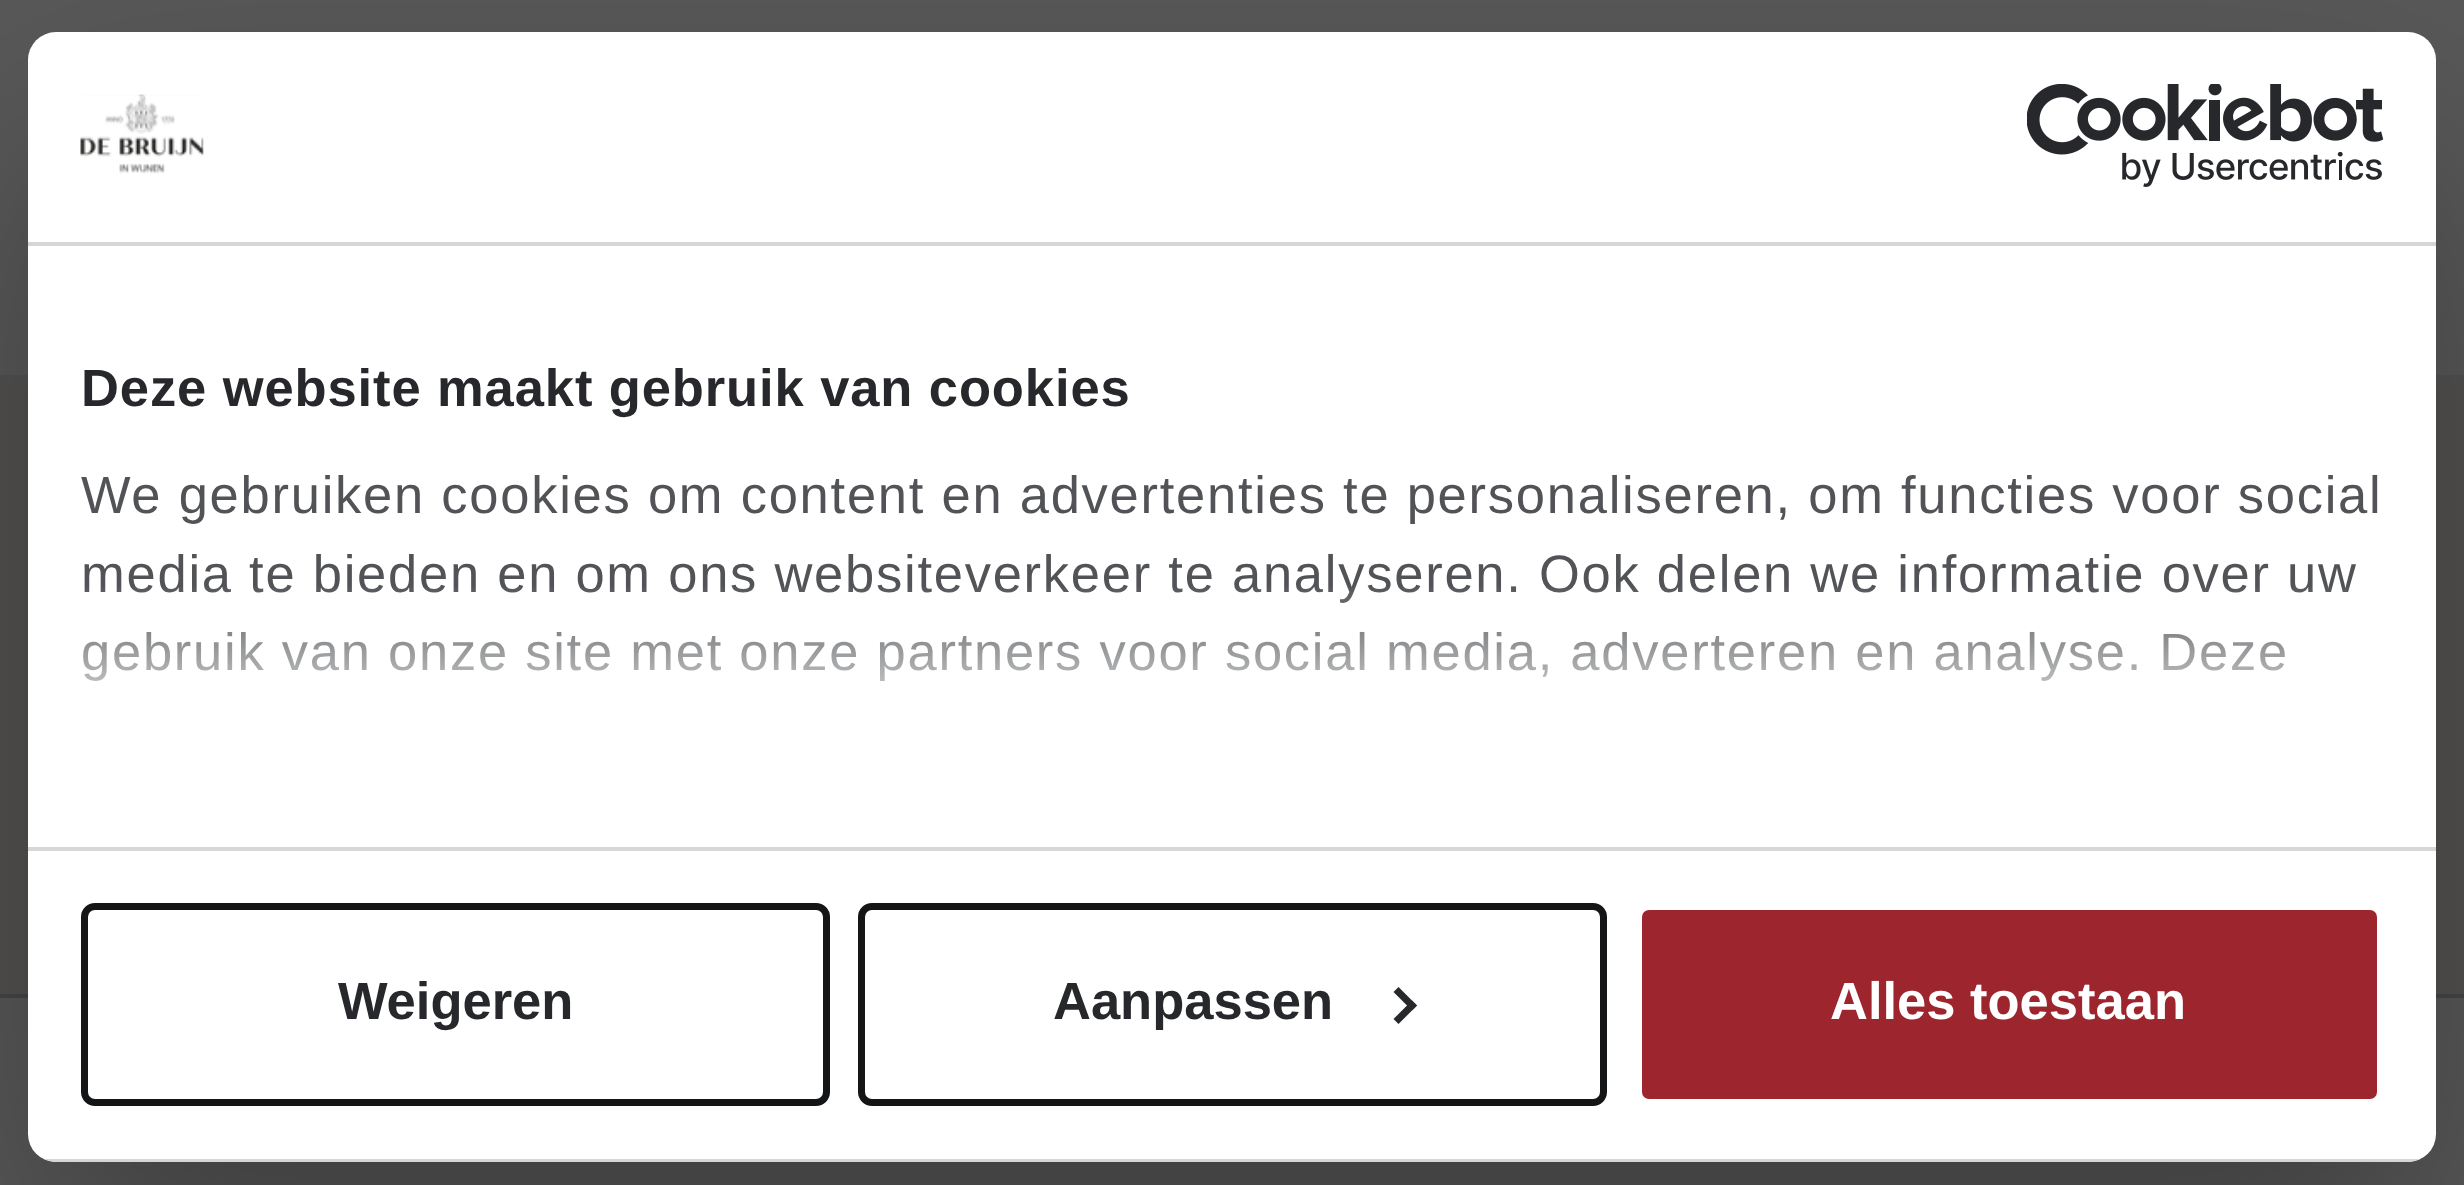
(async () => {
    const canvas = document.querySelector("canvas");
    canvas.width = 2464;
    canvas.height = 1185;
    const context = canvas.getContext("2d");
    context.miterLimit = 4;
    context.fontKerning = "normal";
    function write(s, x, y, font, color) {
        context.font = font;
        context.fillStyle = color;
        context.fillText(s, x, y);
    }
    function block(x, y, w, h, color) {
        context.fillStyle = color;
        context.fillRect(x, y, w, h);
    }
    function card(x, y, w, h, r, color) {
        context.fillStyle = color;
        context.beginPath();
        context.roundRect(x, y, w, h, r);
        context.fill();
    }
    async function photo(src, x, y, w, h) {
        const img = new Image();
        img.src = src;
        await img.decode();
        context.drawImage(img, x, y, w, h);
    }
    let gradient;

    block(0, 0, 2464, 1185, "rgb(89, 89, 89)");
    block(0, 375, 2464, 619, "rgb(84, 83, 82)");
    block(0, 994, 2464, 4, "rgb(71, 71, 70)");
    context.save();
    context.beginPath();
    context.moveTo(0, 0);
    context.lineTo(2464, 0);
    context.lineTo(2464, 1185);
    context.lineTo(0, 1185);
    context.closePath();
    context.moveTo(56, 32);
    context.lineTo(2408, 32);
    context.bezierCurveTo(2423.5, 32, 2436, 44.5, 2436, 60);
    context.lineTo(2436, 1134);
    context.bezierCurveTo(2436, 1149.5, 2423.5, 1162, 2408, 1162);
    context.lineTo(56, 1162);
    context.bezierCurveTo(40.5, 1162, 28, 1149.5, 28, 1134);
    context.lineTo(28, 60);
    context.bezierCurveTo(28, 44.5, 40.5, 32, 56, 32);
    context.closePath();
    context.clip("evenodd");
    context.fillStyle = "rgba(0, 0, 0, 0.3)";
    context.filter = "blur(119px)";
    context.beginPath();
    context.roundRect(28, 144, 2408, 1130, 28);
    context.fill();
    context.filter = "none";
    context.restore();
    card(28, 32, 2408, 1130, 28, "rgb(255, 255, 255)");
    block(28, 242, 2408, 4, "rgb(214, 214, 214)");
    await photo("media/1.png", 80, 94, 124, 80);
    await photo("media/2.png", 2027, 84, 357, 103);
    block(28, 847, 2408, 4, "rgb(214, 214, 214)");
    context.letterSpacing = "0.9px";
    write("Deze website maakt gebruik van cookies", 81, 406, "bold 52.5px Liberation Sans", "rgb(38, 40, 44)");
    context.letterSpacing = "1.75px";
    write("We gebruiken cookies om content en advertenties te personaliseren, om functies voor social", 81, 513, "52.5px Liberation Sans", "rgb(81, 83, 86)");
    write("media te bieden en om ons websiteverkeer te analyseren. Ook delen we informatie over uw", 81, 592, "52.5px Liberation Sans", "rgb(81, 83, 86)");
    write("gebruik van onze site met onze partners voor social media, adverteren en analyse. Deze", 81, 670, "52.5px Liberation Sans", "rgb(81, 83, 86)");
    gradient = context.createLinearGradient(1209, 845, 1209, 583);
    gradient.addColorStop(0, "rgb(255, 255, 255)");
    gradient.addColorStop(0.5, "rgba(255, 255, 255, 0.8)");
    gradient.addColorStop(1, "rgba(255, 255, 255, 0)");
    context.fillStyle = gradient;
    context.fillRect(82, 587, 2267, 94);
    context.save();
    context.beginPath();
    context.roundRect(28, 32, 2408, 1130, 28);
    context.clip();
    block(43, 1159, 2378, 3, "rgb(214, 214, 214)");
    context.restore();
    context.beginPath();
    context.roundRect(84.5, 906.5, 742, 196, 10.5);
    context.strokeStyle = "rgb(20, 21, 23)";
    context.lineWidth = 7;
    context.stroke();
    context.letterSpacing = "0px";
    write("Weigeren", 338, 1019, "bold 52.5px Liberation Sans", "rgb(38, 40, 44)");
    context.beginPath();
    context.roundRect(861.5, 906.5, 742, 196, 10.5);
    context.stroke();
    write("Aanpassen", 1053, 1019, "bold 52.5px Liberation Sans", "rgb(38, 40, 44)");
    context.beginPath();
    context.moveTo(1398.5, 987);
    context.lineTo(1417, 1005.5);
    context.lineTo(1412, 1010.5);
    context.lineTo(1393.5, 992);
    context.closePath();
    context.fill();
    context.beginPath();
    context.moveTo(1412, 1000.5);
    context.lineTo(1417, 1005.5);
    context.lineTo(1398.5, 1024);
    context.lineTo(1393.5, 1019);
    context.closePath();
    context.fill();
    context.fillStyle = "rgb(157, 37, 46)";
    context.beginPath();
    context.roundRect(1638.5, 906.5, 742, 196, 10.5);
    context.fill();
    context.strokeStyle = "rgb(255, 255, 255)";
    context.stroke();
    write("Alles toestaan", 1830, 1019, "bold 52.5px Liberation Sans", "rgb(255, 255, 255)");
})();
